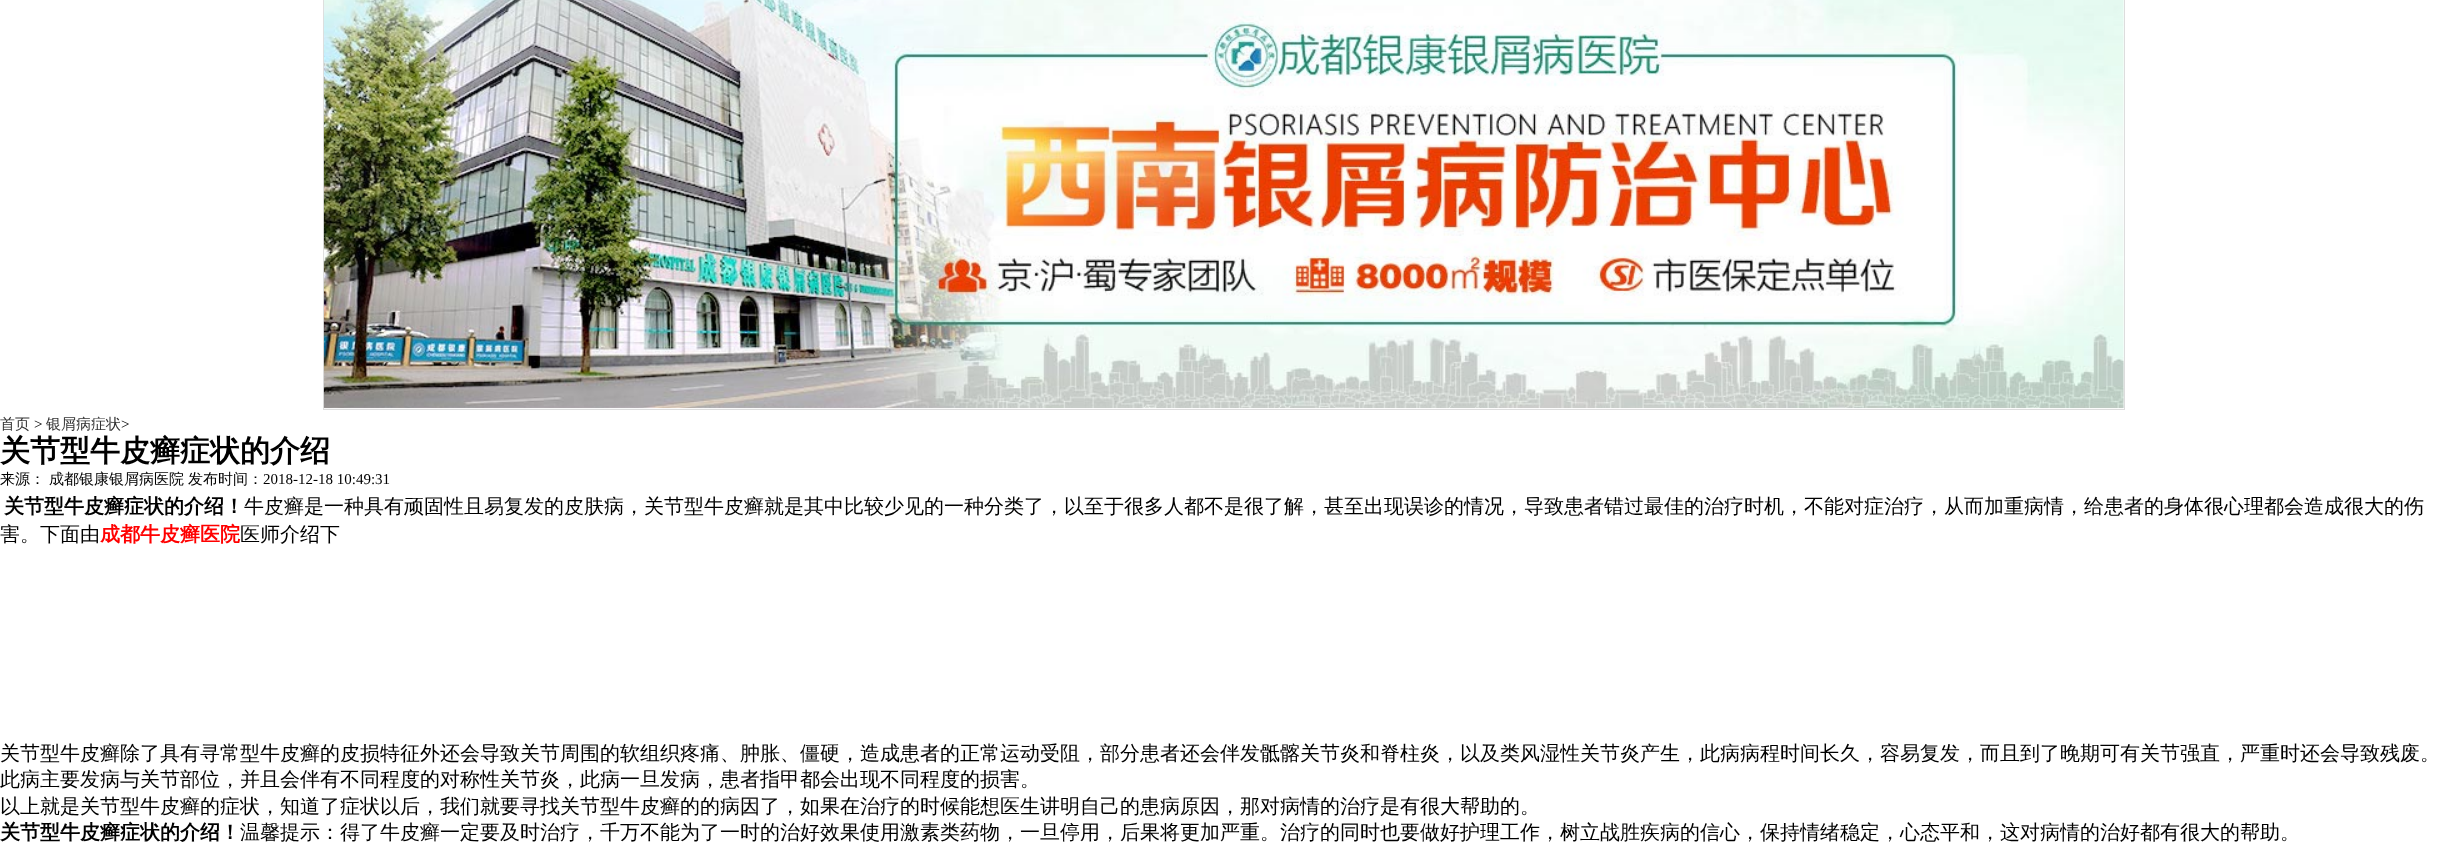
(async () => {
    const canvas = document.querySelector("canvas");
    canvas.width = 2447;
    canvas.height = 849;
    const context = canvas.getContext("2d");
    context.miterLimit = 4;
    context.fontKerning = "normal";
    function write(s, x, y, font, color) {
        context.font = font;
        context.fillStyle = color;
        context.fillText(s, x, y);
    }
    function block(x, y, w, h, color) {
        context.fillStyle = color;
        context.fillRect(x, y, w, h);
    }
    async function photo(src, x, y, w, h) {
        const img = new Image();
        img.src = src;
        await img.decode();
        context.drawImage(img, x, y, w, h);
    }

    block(0, 0, 2447, 849, "rgb(255, 255, 255)");
    context.strokeStyle = "rgb(221, 221, 221)";
    context.strokeRect(323.5, -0.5, 1801, 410);
    await photo("media/1.png", 323, 0, 1801, 409);
    write("首页", 0, 429, "500 15px WenQuanYi Zen Hei", "rgb(51, 51, 51)");
    write(">", 34, 429, "15px Liberation Serif", "rgb(0, 0, 0)");
    write("银屑病症状", 46, 429, "500 15px WenQuanYi Zen Hei", "rgb(51, 51, 51)");
    write(">", 121, 429, "15px Liberation Serif", "rgb(0, 0, 0)");
    write("关节型牛皮癣症状的介绍", 0, 461, "bold 30px WenQuanYi Zen Hei", "rgb(0, 0, 0)");
    write("来源：", 0, 484, "500 15px WenQuanYi Zen Hei", "rgb(0, 0, 0)");
    write("成都银康银屑病医院", 49, 484, "500 15px WenQuanYi Zen Hei", "rgb(0, 0, 0)");
    write("发布时间：", 188, 484, "500 15px WenQuanYi Zen Hei", "rgb(0, 0, 0)");
    write("2018-12-18 10:49:31", 263, 484, "15px Liberation Serif", "rgb(0, 0, 0)");
    write("关节型牛皮癣症状的介绍！", 4, 513, "bold 20px WenQuanYi Zen Hei", "rgb(0, 0, 0)");
    write("牛皮癣是一种具有顽固性且易复发的皮肤病，关节型牛皮癣就是其中比较少见的一种分类了，以至于很多人都不是很了解，甚至出现误诊的情况，导致患者错过最佳的治疗时机，不能对症治疗，从而加重病情，给患者的身体很心理都会造成很大的伤", 244, 513, "500 20px WenQuanYi Zen Hei", "rgb(0, 0, 0)");
    write("害。下面由", 0, 541, "500 20px WenQuanYi Zen Hei", "rgb(0, 0, 0)");
    write("成都牛皮癣医院", 100, 541, "bold 20px WenQuanYi Zen Hei", "rgb(255, 0, 0)");
    write("医师介绍下", 240, 541, "500 20px WenQuanYi Zen Hei", "rgb(0, 0, 0)");
    write("关节型牛皮癣除了具有寻常型牛皮癣的皮损特征外还会导致关节周围的软组织疼痛、肿胀、僵硬，造成患者的正常运动受阻，部分患者还会伴发骶髂关节炎和脊柱炎，以及类风湿性关节炎产生，此病病程时间长久，容易复发，而且到了晚期可有关节强直，严重时还会导致残废。", 0, 760, "500 20px WenQuanYi Zen Hei", "rgb(0, 0, 0)");
    write("此病主要发病与关节部位，并且会伴有不同程度的对称性关节炎，此病一旦发病，患者指甲都会出现不同程度的损害。", 0, 786, "500 20px WenQuanYi Zen Hei", "rgb(0, 0, 0)");
    write("以上就是关节型牛皮癣的症状，知道了症状以后，我们就要寻找关节型牛皮癣的的病因了，如果在治疗的时候能想医生讲明自己的患病原因，那对病情的治疗是有很大帮助的。", 0, 813, "500 20px WenQuanYi Zen Hei", "rgb(0, 0, 0)");
    write("关节型牛皮癣症状的介绍！", 0, 839, "bold 20px WenQuanYi Zen Hei", "rgb(0, 0, 0)");
    write("温馨提示：得了牛皮癣一定要及时治疗，千万不能为了一时的治好效果使用激素类药物，一旦停用，后果将更加严重。治疗的同时也要做好护理工作，树立战胜疾病的信心，保持情绪稳定，心态平和，这对病情的治好都有很大的帮助。", 240, 839, "500 20px WenQuanYi Zen Hei", "rgb(0, 0, 0)");
})();
